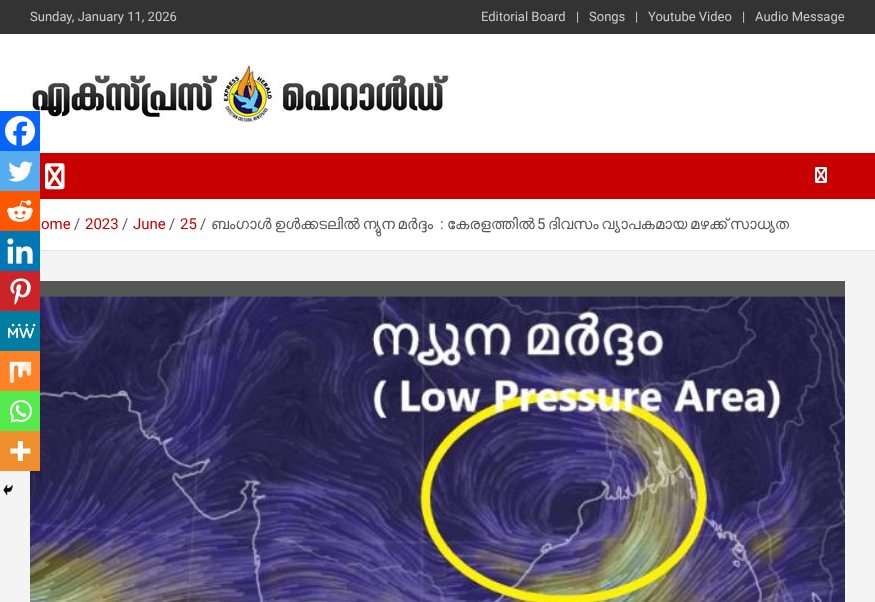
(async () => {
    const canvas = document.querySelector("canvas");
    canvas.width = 875;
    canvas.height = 602;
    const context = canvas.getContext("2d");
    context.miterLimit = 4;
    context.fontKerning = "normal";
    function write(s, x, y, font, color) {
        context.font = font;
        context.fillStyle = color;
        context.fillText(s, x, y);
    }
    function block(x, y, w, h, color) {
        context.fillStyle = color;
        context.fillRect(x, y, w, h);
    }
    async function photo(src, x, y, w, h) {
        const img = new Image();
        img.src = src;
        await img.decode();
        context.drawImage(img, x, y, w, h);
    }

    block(0, 0, 875, 602, "rgb(244, 244, 244)");
    block(0, 0, 875, 34, "rgb(51, 51, 51)");
    write("Sunday, January 11, 2026", 30, 21, "13px Roboto", "rgb(204, 204, 204)");
    write("Editorial Board", 481, 21, "13px Roboto", "rgb(204, 204, 204)");
    write("|", 576, 21, "13px Roboto", "rgb(204, 204, 204)");
    write("Songs", 589, 21, "13px Roboto", "rgb(204, 204, 204)");
    write("|", 635, 21, "13px Roboto", "rgb(204, 204, 204)");
    write("Youtube Video", 648, 21, "13px Roboto", "rgb(204, 204, 204)");
    write("|", 742, 21, "13px Roboto", "rgb(204, 204, 204)");
    write("Audio Message", 755, 21, "13px Roboto", "rgb(204, 204, 204)");
    block(0, 34, 875, 119, "rgb(255, 255, 255)");
    await photo("media/1.png", 30, 64, 420, 59);
    block(40, 153, 835, 46, "rgb(200, 0, 0)");
    await photo("media/2.png", 45, 163, 20, 27);
    await photo("media/3.png", 815, 167, 12, 16);
    block(40, 199, 835, 51, "rgb(255, 255, 255)");
    block(40, 250, 835, 1, "rgb(230, 230, 230)");
    write("ome", 41, 229, "15px Roboto", "rgb(200, 0, 0)");
    write("/", 74, 229, "15px Roboto", "rgb(85, 85, 85)");
    write("2023", 85, 229, "15px Roboto", "rgb(200, 0, 0)");
    write("/", 122, 229, "15px Roboto", "rgb(85, 85, 85)");
    write("June", 133, 229, "15px Roboto", "rgb(200, 0, 0)");
    write("/", 169, 229, "15px Roboto", "rgb(85, 85, 85)");
    write("25", 180, 229, "15px Roboto", "rgb(200, 0, 0)");
    write("/", 200, 229, "15px Roboto", "rgb(85, 85, 85)");
    context.wordSpacing = "-1px";
    write("ബംഗാൾ ഉൾക്കടലിൽ ന്യുന മർദ്ദം", 211, 229, "15px FreeSans", "rgb(85, 85, 85)");
    context.wordSpacing = "0px";
    write(":", 440, 229, "15px Roboto", "rgb(85, 85, 85)");
    write("കേരളത്തിൽ", 447, 229, "15px FreeSans", "rgb(85, 85, 85)");
    write("5", 537, 229, "15px Roboto", "rgb(85, 85, 85)");
    context.wordSpacing = "-1px";
    write("ദിവസം വ്യാപകമായ മഴക്ക് സാധ്യത", 548, 229, "15px FreeSans", "rgb(85, 85, 85)");
    block(0, 111, 40, 40, "rgb(7, 101, 254)");
    await photo("media/4.png", 5, 116, 30, 30);
    block(0, 151, 40, 40, "rgb(85, 172, 238)");
    await photo("media/5.png", 8, 161, 25, 21);
    block(0, 191, 40, 40, "rgb(255, 87, 0)");
    await photo("media/6.png", 7, 200, 26, 22);
    block(0, 231, 40, 40, "rgb(0, 119, 181)");
    await photo("media/7.png", 7, 238, 26, 26);
    block(40, 281, 805, 16, "rgb(85, 85, 85)");
    await photo("media/14.png", 30, 296, 815, 306);
    block(0, 271, 40, 40, "rgb(204, 35, 41)");
    await photo("media/8.png", 10, 278, 21, 27);
    block(0, 311, 40, 40, "rgb(0, 125, 161)");
    await photo("media/9.png", 8, 323, 28, 16);
    block(0, 351, 40, 40, "rgb(255, 130, 38)");
    await photo("media/10.png", 9, 361, 23, 22);
    block(0, 391, 40, 40, "rgb(85, 235, 76)");
    await photo("media/11.png", 10, 400, 22, 23);
    block(0, 431, 40, 40, "rgb(238, 142, 45)");
    await photo("media/12.png", 10, 441, 21, 20);
    await photo("media/13.png", 3, 484, 10, 12);
})();
